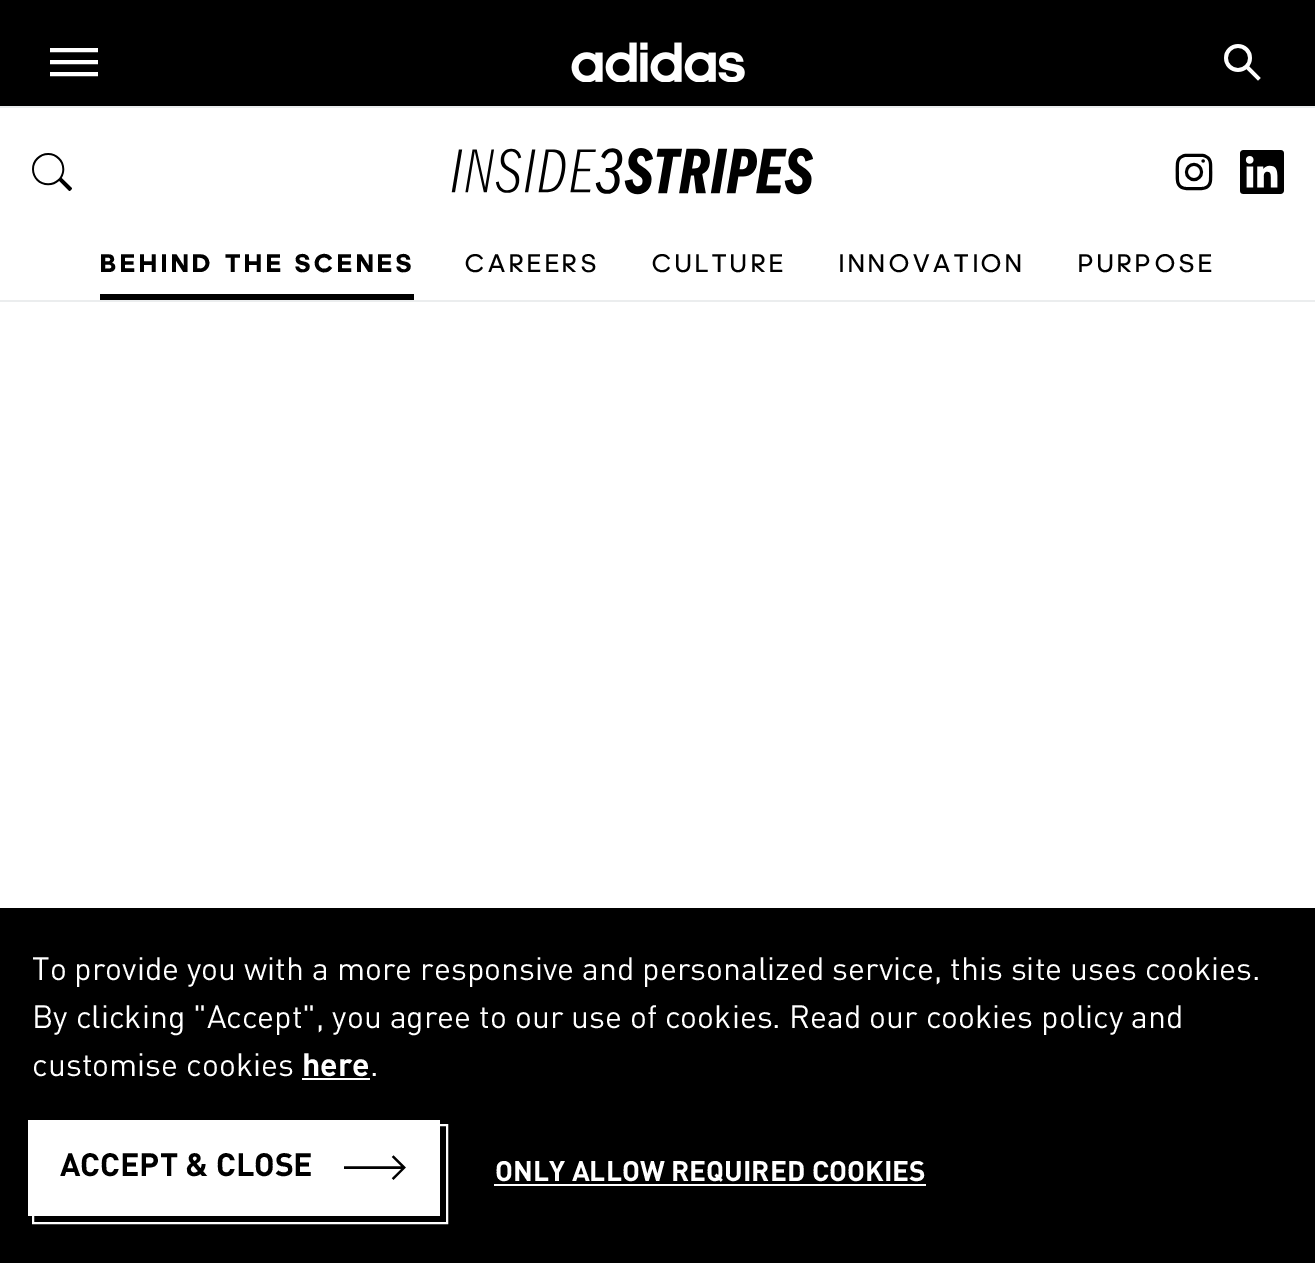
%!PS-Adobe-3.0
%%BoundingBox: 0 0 1315 1263
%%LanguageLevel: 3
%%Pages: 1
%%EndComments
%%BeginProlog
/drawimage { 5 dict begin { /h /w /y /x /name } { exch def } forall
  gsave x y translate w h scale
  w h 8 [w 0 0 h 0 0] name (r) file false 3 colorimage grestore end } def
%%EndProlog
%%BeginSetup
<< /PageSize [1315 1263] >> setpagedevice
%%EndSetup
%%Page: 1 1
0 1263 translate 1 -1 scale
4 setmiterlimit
1 setgray
0 0 1315 1263 rectfill
0 setgray
0 0 1315 106 rectfill
1 setgray
4 setlinewidth
newpath 50 50 moveto 98 50 lineto 50 62 moveto 98 62 lineto 50 74 moveto 98 74 lineto stroke
(images/1.raw) 571 42 174 40 drawimage
(images/2.raw) 1224 44 37 37 drawimage
0.922 0.929 0.933 setrgbcolor
0 106 1315 2 rectfill
0 300 1315 2 rectfill
(images/3.raw) 32 153 40 38 drawimage
(images/4.raw) 451 148 362 47 drawimage
(images/5.raw) 1175 153 38 38 drawimage
(images/6.raw) 1240 150 44 44 drawimage
0 setgray
100 294 314 6 rectfill
0 908 1315 355 rectfill
1 setgray
302 1078 68 2 rectfill
2 setlinewidth
33 1125 414 98 rectstroke
28 1120 412 96 rectfill
(images/7.raw) 344 1155 62 25 drawimage
494 1184 432 2 rectfill
/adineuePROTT-Bold [26 0 0 -26 0 0] selectfont
0 setgray
100 272 moveto 1 0 32 4 0 (BEHIND THE SCENES) awidthshow
/adineuePROTT-Regular [26 0 0 -26 0 0] selectfont
465 272 moveto 4 0 (CAREERS) ashow
652 272 moveto 4 0 (CULTURE) ashow
839 272 moveto 4 0 (INNOVATION) ashow
1078 272 moveto 4 0 (PURPOSE) ashow
/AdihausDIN-Regular [32 0 0 -32 0 0] selectfont
1 setgray
32 980 moveto (To provide you with a more responsive and personalized service, this site uses cookies.) show
32 1028 moveto (By clicking "Accept", you agree to our use of cookies. Read our cookies policy and) show
32 1076 moveto (customise cookies) show
/AdihausDIN-Bold [32 0 0 -32 0 0] selectfont
302 1076 moveto (here) show
/AdihausDIN-Regular [32 0 0 -32 0 0] selectfont
370 1076 moveto (.) show
/AdihausDIN-Bold [32 0 0 -32 0 0] selectfont
0 setgray
60 1176 moveto (ACCEPT & CLOSE) show
/AdihausDIN-Bold [28 0 0 -28 0 0] selectfont
1 setgray
495 1181 moveto (ONLY ALLOW REQUIRED COOKIES) show
showpage
%%EOF
